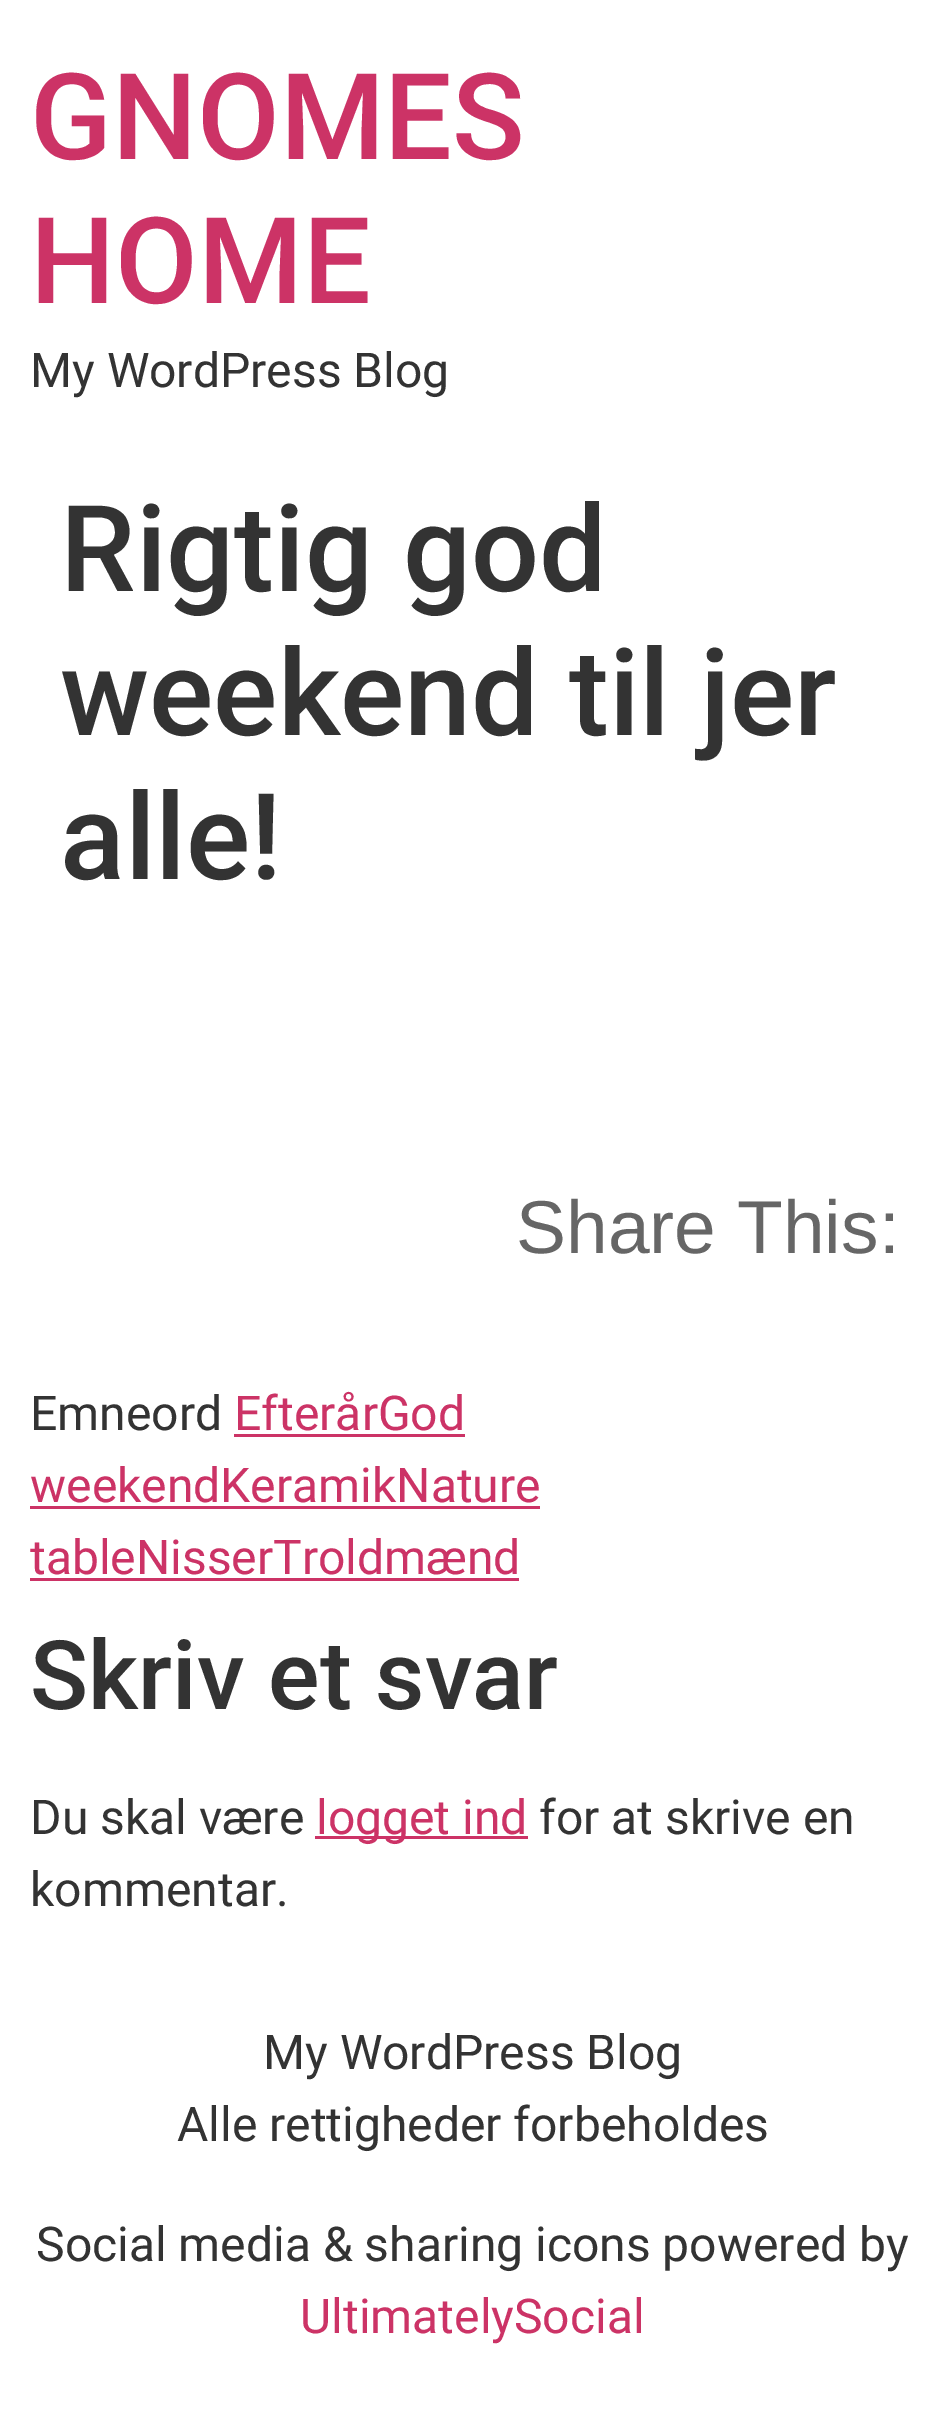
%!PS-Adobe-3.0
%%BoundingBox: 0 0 943 2413
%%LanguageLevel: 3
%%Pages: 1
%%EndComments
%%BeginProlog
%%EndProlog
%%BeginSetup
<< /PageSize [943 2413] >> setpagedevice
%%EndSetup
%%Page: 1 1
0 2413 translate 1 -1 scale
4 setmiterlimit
1 setgray
0 0 943 2413 rectfill
0.8 0.2 0.4 setrgbcolor
234 1434 231 3 rectfill
30 1506 510 3 rectfill
30 1578 489 3 rectfill
315 1836 213 3 rectfill
/Roboto-Medium [120 0 0 -120 0 0] selectfont
30 159 moveto (GNOMES) show
30 303 moveto (HOME) show
/Roboto-Regular [48 0 0 -48 0 0] selectfont
0.2 setgray
30 387 moveto (My WordPress Blog) show
/Roboto-Medium [120 0 0 -120 0 0] selectfont
60 591 moveto (Rigtig god) show
60 735 moveto (weekend til jer) show
60 879 moveto (alle!) show
/LiberationSans-Regular [75 0 0 -75 0 0] selectfont
0.4 setgray
516 1253 moveto (Share This:) show
/Roboto-Regular [48 0 0 -48 0 0] selectfont
0.2 setgray
30 1430 moveto (Emneord) show
0.8 0.2 0.4 setrgbcolor
234 1430 moveto (EfterårGod) show
30 1502 moveto (weekendKeramikNature) show
30 1574 moveto (tableNisserTroldmænd) show
/Roboto-Medium [96 0 0 -96 0 0] selectfont
0.2 setgray
30 1709 moveto (Skriv et svar) show
/Roboto-Regular [48 0 0 -48 0 0] selectfont
30 1834 moveto (Du skal være) show
0.8 0.2 0.4 setrgbcolor
316 1834 moveto (logget ind) show
0.2 setgray
539 1834 moveto (for at skrive en) show
30 1906 moveto (kommentar.) show
263 2069 moveto (My WordPress Blog) show
177 2141 moveto (Alle rettigheder forbeholdes) show
36 2261 moveto (Social media & sharing icons powered by) show
0.8 0.2 0.4 setrgbcolor
300 2333 moveto (UltimatelySocial) show
showpage
%%EOF
